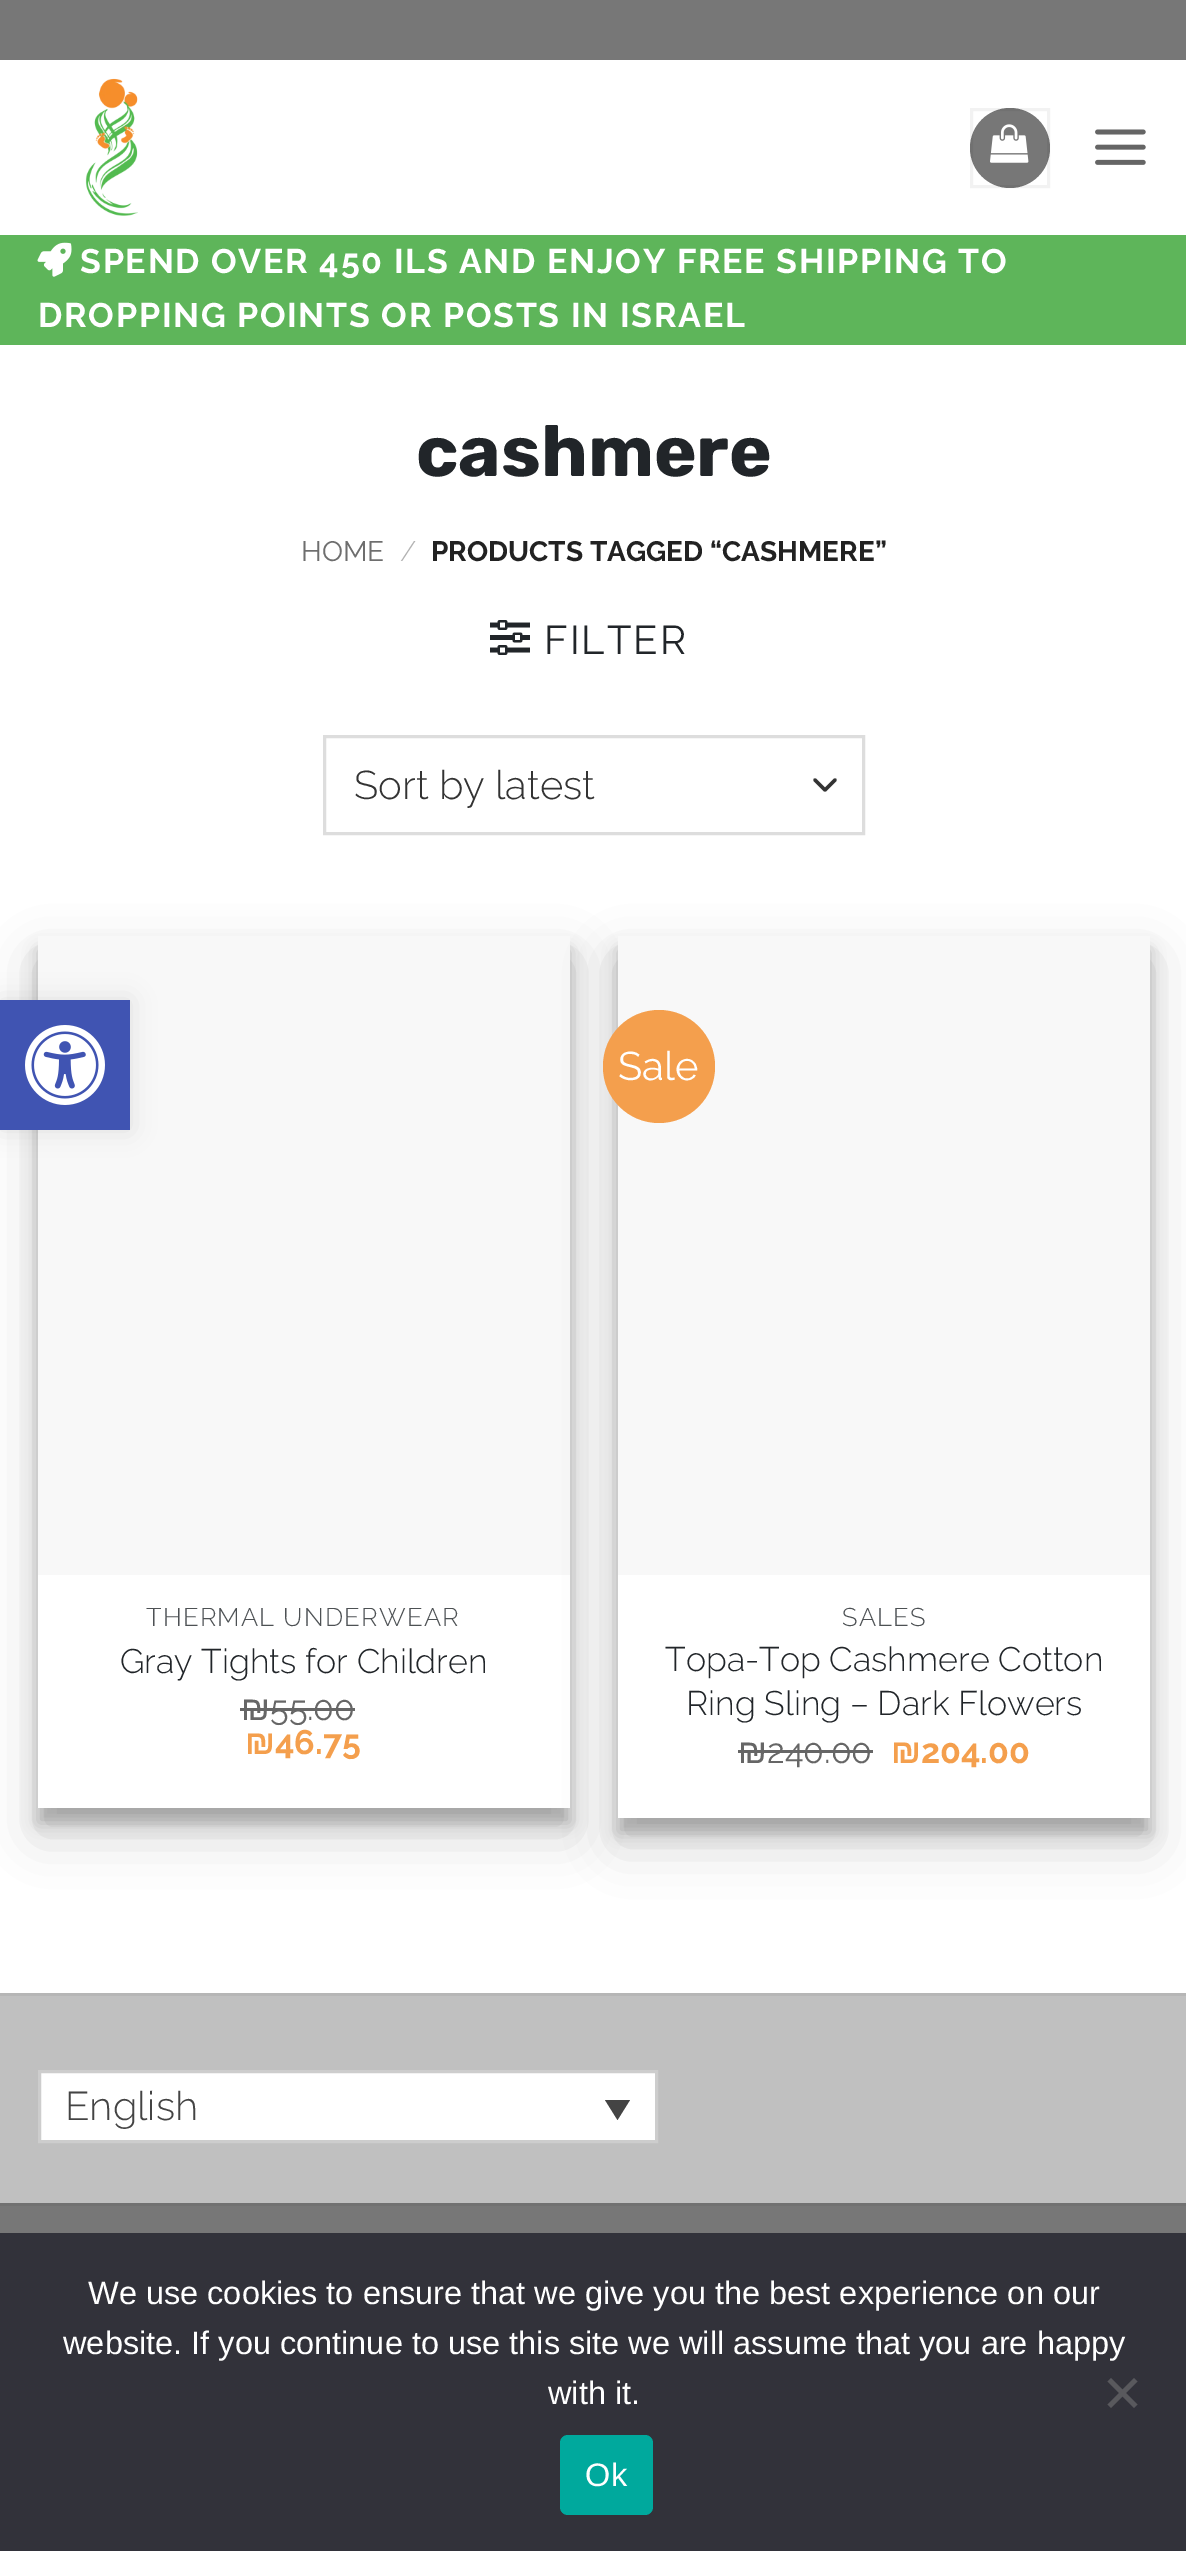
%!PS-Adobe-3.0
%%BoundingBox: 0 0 1186 2551
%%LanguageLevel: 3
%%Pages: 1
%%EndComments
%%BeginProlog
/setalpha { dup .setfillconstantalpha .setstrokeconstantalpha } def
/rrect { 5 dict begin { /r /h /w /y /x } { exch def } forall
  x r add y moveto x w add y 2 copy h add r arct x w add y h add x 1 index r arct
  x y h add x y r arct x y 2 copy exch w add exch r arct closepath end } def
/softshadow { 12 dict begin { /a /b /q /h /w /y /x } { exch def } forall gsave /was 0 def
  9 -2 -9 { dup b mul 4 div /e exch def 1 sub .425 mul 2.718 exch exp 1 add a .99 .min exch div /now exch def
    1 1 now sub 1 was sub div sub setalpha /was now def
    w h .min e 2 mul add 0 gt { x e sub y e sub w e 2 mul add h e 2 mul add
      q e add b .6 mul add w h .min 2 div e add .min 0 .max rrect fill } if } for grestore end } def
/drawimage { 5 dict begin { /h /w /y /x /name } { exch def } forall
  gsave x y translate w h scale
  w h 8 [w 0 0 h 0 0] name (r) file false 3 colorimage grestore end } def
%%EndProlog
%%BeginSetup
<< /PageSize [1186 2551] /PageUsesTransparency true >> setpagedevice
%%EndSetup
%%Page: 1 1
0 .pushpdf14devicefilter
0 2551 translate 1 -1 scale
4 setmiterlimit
1 setgray
0 0 1186 2551 rectfill
0.467 setgray
0 0 1186 60 rectfill
(images/1.raw) 85 78 53 138 drawimage
newpath 1010 148 40 0 360 arc closepath fill
0.05 setalpha
0 setgray
3 setlinewidth
971.5 109.5 77 77 rectstroke
1 setalpha
(images/2.raw) 990 124 39 39 drawimage
(images/3.raw) 1095 129 51 36 drawimage
0.369 0.71 0.353 setrgbcolor
0 235 1186 110 rectfill
(images/4.raw) 37 242 35 35 drawimage
(images/5.raw) 490 620 40 35 drawimage
0.2 setgray
3.3 setlinewidth
1 setlinecap
1 setlinejoin
newpath 815 780 moveto 825 790 lineto 835 780 lineto stroke
0.867 setgray
3 setlinewidth
0 setlinecap
0 setlinejoin
324.5 736.5 539 97 rectstroke
0 setgray
38 950 532 873 0 7.5 0.22 softshadow
38 960 532 873 0 25 0.19 softshadow
1 setgray
38 1575 532 233 rectfill
0.973 setgray
38 936 532 639 rectfill
0.4 setgray
240 1708 30 3 rectfill
270 1708 85 3 rectfill
0 setgray
618 950 532 883 0 7.5 0.22 softshadow
618 960 532 883 0 25 0.19 softshadow
1 setgray
618 1575 532 243 rectfill
0.973 setgray
618 936 532 639 rectfill
0.957 0.624 0.302 setrgbcolor
603 1010 112 113 56 rrect fill
0.4 setgray
738 1750 30 3 rectfill
768 1750 105 3 rectfill
0.753 setgray
0 1996 1186 207 rectfill
0.714 setgray
0 1993 1186 3 rectfill
1 setgray
newpath 39.5 2071.5 moveto 656.5 2071.5 lineto 656.5 2141.5 lineto 39.5 2141.5 lineto closepath gsave fill grestore
0.804 setgray
stroke
0.267 setgray
newpath 605 2100 moveto 630 2100 lineto 617.5 2120 lineto closepath fill
0.467 setgray
0 2206 1186 27 rectfill
0.443 setgray
0 2203 1186 3 rectfill
0 setgray
0 1000 130 130 0 12.5 0.1 softshadow
0.251 0.329 0.698 setrgbcolor
0 1000 130 130 rectfill
(images/6.raw) 25 1025 80 80 drawimage
0.196 0.196 0.227 setrgbcolor
0 2233 1186 318 rectfill
0.349 0.349 0.365 setrgbcolor
newpath 1134 2378 moveto 1137.5 2381.5 lineto 1111 2408 lineto 1107.5 2404.5 lineto closepath fill
newpath 1107.5 2381.5 moveto 1111 2378 lineto 1137.5 2404.5 lineto 1134 2408 lineto closepath fill
0 0.663 0.616 setrgbcolor
560 2435 93 80 8 rrect fill
/Raleway-Bold [34 0 0 -34 0 0] selectfont
1 setgray
80 273 moveto 1.7 0 (SPEND OVER 450 ILS AND ENJOY FREE SHIPPING TO) ashow
38 327 moveto 1.7 0 (DROPPING POINTS OR POSTS IN ISRAEL) ashow
/Rubik-Bold [72 0 0 -72 0 0] selectfont
0.129 0.145 0.161 setrgbcolor
416 476 moveto (cashmere) show
/Raleway-Regular [28 0 0 -28 0 0] selectfont
0.431 setgray
301 561 moveto (HOME) show
/Raleway-Light [28 0 0 -28 0 0] selectfont
0.698 setgray
400 561 moveto (/) show
/Raleway-Bold [28 0 0 -28 0 0] selectfont
0.133 setgray
431 561 moveto (PRODUCTS TAGGED “CASHMERE”) show
/Raleway-Regular [40 0 0 -40 0 0] selectfont
0.129 0.145 0.161 setrgbcolor
544 654 moveto 2 0 (FILTER) ashow
/Raleway-Light [40 0 0 -40 0 0] selectfont
0.2 setgray
354 799 moveto (Sort by latest) show
/Raleway-Light [25.5 0 0 -25.5 0 0] selectfont
0.302 0.318 0.329 setrgbcolor
146 1626 moveto 1.25 0 (THERMAL UNDERWEAR) ashow
/Raleway-Light [34 0 0 -34 0 0] selectfont
0.129 0.145 0.161 setrgbcolor
120 1673 moveto (Gray Tights for Children) show
/LiberationSans-Regular [34 0 0 -34 0 0] selectfont
0.4 setgray
241 1720 moveto (₪) show
/Raleway-Regular [34 0 0 -34 0 0] selectfont
270 1720 moveto (55.00) show
/LiberationSans-Bold [34 0 0 -34 0 0] selectfont
0.957 0.624 0.302 setrgbcolor
245 1754 moveto (₪) show
/Raleway-Bold [34 0 0 -34 0 0] selectfont
275 1754 moveto (46.75) show
/Raleway-Regular [40 0 0 -40 0 0] selectfont
1 setgray
618 1080 moveto (Sale) show
/Raleway-Light [25.5 0 0 -25.5 0 0] selectfont
0.302 0.318 0.329 setrgbcolor
842 1626 moveto 1.25 0 (SALES) ashow
/Raleway-Light [34 0 0 -34 0 0] selectfont
0.129 0.145 0.161 setrgbcolor
665 1671 moveto (Topa-Top Cashmere Cotton) show
686 1715 moveto (Ring Sling – Dark Flowers) show
/LiberationSans-Regular [34 0 0 -34 0 0] selectfont
0.4 setgray
738 1763 moveto (₪) show
/Raleway-Regular [34 0 0 -34 0 0] selectfont
767 1763 moveto (240.00) show
/LiberationSans-Bold [34 0 0 -34 0 0] selectfont
0.957 0.624 0.302 setrgbcolor
891 1763 moveto (₪) show
/Raleway-Bold [34 0 0 -34 0 0] selectfont
921 1763 moveto (204.00) show
/Raleway-Light [40 0 0 -40 0 0] selectfont
0.267 setgray
65 2120 moveto (English) show
/LiberationSans-Regular [32.5 0 0 -32.5 0 0] selectfont
1 setgray
88 2304 moveto (We use cookies to ensure that we give you the best experience on our) show
63 2354 moveto (website. If you continue to use this site we will assume that you are happy) show
548 2404 moveto (with it.) show
585 2486 moveto 1 0 (Ok) ashow
.poppdf14devicefilter showpage
%%EOF
